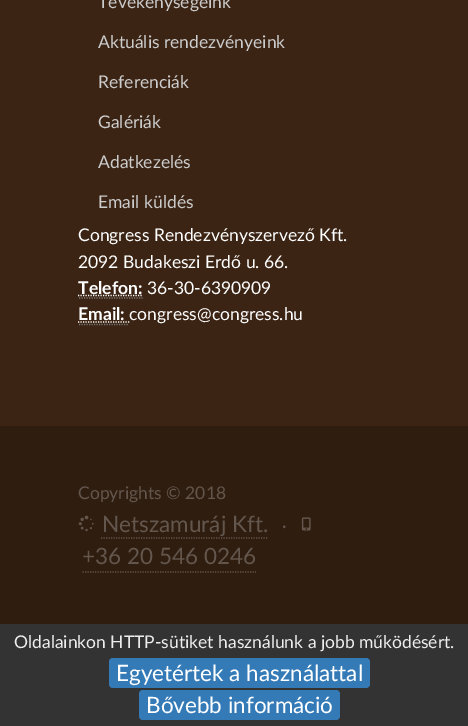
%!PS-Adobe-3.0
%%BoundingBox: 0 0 468 726
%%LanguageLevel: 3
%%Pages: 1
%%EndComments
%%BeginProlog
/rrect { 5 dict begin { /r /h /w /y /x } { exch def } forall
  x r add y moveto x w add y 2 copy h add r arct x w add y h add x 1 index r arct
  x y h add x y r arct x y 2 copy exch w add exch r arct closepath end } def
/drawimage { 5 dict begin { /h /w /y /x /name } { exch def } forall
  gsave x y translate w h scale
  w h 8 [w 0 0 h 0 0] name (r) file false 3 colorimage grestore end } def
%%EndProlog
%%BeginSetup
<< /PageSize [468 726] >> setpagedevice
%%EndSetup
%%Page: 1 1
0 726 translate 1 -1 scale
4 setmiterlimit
0.2 setgray
0 0 468 726 rectfill
0.231 0.141 0.078 setrgbcolor
0 0 468 426 rectfill
0.467 setgray
1.2 setlinewidth
[1.25 1.25] 0 setdash
newpath 79 298 moveto 142.5 298 lineto stroke
1 setgray
newpath 78 295.5 moveto 142.5 295.5 lineto stroke
0.467 setgray
newpath 79 324.5 moveto 129 324.5 lineto stroke
1 setgray
newpath 78 322 moveto 129.5 322 lineto stroke
0.184 0.114 0.063 setrgbcolor
0 426 468 198 rectfill
(images/1.raw) 78 515 16 17 drawimage
0.388 0.337 0.298 setrgbcolor
newpath 101 538 moveto 267.5 538 lineto stroke
(images/2.raw) 301 517 10 14 drawimage
newpath 82.5 572 moveto 256 572 lineto stroke
0.2 0.478 0.718 setrgbcolor
109 658 261 30 4 rrect fill
139 690 201 30 4 rrect fill
/Lato-Regular [17.5 0 0 -17.5 0 0] selectfont
0.8 setgray
98 8 moveto (Tevékenységeink) show
98 48 moveto (Aktuális rendezvényeink) show
98 88 moveto (Referenciák) show
98 128 moveto (Galériák) show
98 168 moveto (Adatkezelés) show
98 208 moveto (Email küldés) show
1 setgray
78 241 moveto (Congress Rendezvényszervező Kft.) show
78 268 moveto (2092 Budakeszi Erdő u. 66.) show
/Lato-Bold [17.5 0 0 -17.5 0 0] selectfont
78 294 moveto (Telefon:) show
/Lato-Regular [17.5 0 0 -17.5 0 0] selectfont
147 294 moveto (36-30-6390909) show
/Lato-Bold [17.5 0 0 -17.5 0 0] selectfont
78 320 moveto (Email:) show
/Lato-Regular [17.5 0 0 -17.5 0 0] selectfont
129 320 moveto (congress@congress.hu) show
0.388 0.337 0.298 setrgbcolor
78 499 moveto (Copyrights © 2018) show
/Lato-Regular [22.5 0 0 -22.5 0 0] selectfont
102 532 moveto (Netszamuráj Kft.) show
/Lato-Regular [17.5 0 0 -17.5 0 0] selectfont
282 532 moveto (·) show
/Lato-Regular [22.5 0 0 -22.5 0 0] selectfont
82 564 moveto (+36 20 546 0246) show
/Lato-Regular [17.5 0 0 -17.5 0 0] selectfont
0.933 setgray
14 648 moveto (Oldalainkon HTTP-sütiket használunk a jobb működésért.) show
/Lato-Regular [22.5 0 0 -22.5 0 0] selectfont
1 setgray
116 681 moveto (Egyetértek a használattal) show
146 713 moveto (Bővebb információ) show
showpage
%%EOF
